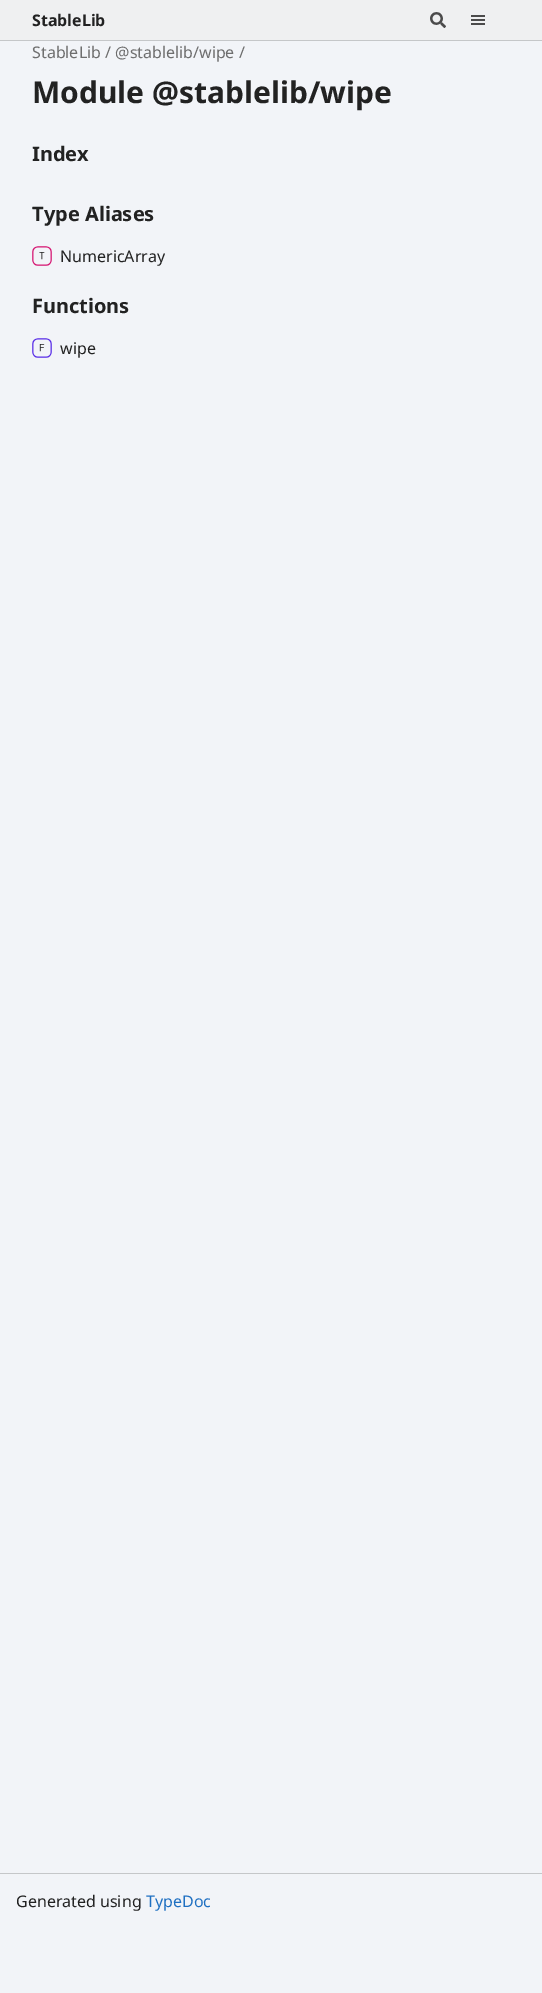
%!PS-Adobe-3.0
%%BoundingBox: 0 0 542 1993
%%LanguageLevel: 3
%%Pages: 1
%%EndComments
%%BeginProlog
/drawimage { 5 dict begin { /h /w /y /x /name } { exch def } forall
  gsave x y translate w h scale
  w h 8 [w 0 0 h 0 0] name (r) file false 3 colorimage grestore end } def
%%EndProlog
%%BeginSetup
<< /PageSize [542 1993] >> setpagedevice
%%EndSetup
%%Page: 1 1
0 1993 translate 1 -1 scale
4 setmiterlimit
0.949 0.957 0.973 setrgbcolor
0 0 542 1993 rectfill
0.937 0.941 0.945 setrgbcolor
0 0 542 40 rectfill
0.773 0.78 0.788 setrgbcolor
0 40 542 1 rectfill
(images/1.raw) 430 12 16 16 drawimage
(images/2.raw) 471 15 14 10 drawimage
(images/3.raw) 32 246 20 20 drawimage
(images/4.raw) 32 338 20 20 drawimage
0 1873 542 1 rectfill
/NotoSans-Bold [16 0 0 -16 0 0] selectfont
0.133 setgray
32 26 moveto (StableLib) show
/NotoSans-Regular [16 0 0 -16 0 0] selectfont
0.431 setgray
32 58 moveto (StableLib / @stablelib/wipe /) show
/NotoSans-Bold [30 0 0 -30 0 0] selectfont
0.133 setgray
32 103 moveto (Module @stablelib/wipe) show
/NotoSans-Bold [20 0 0 -20 0 0] selectfont
32 161 moveto (Index) show
32 221 moveto (Type Aliases) show
/NotoSans-Regular [16 0 0 -16 0 0] selectfont
60 262 moveto (NumericArray) show
/NotoSans-Bold [20 0 0 -20 0 0] selectfont
32 313 moveto (Functions) show
/NotoSans-Regular [16 0 0 -16 0 0] selectfont
60 354 moveto (wipe) show
16 1907 moveto (Generated using) show
0.122 0.439 0.761 setrgbcolor
146 1907 moveto (TypeDoc) show
showpage
%%EOF
